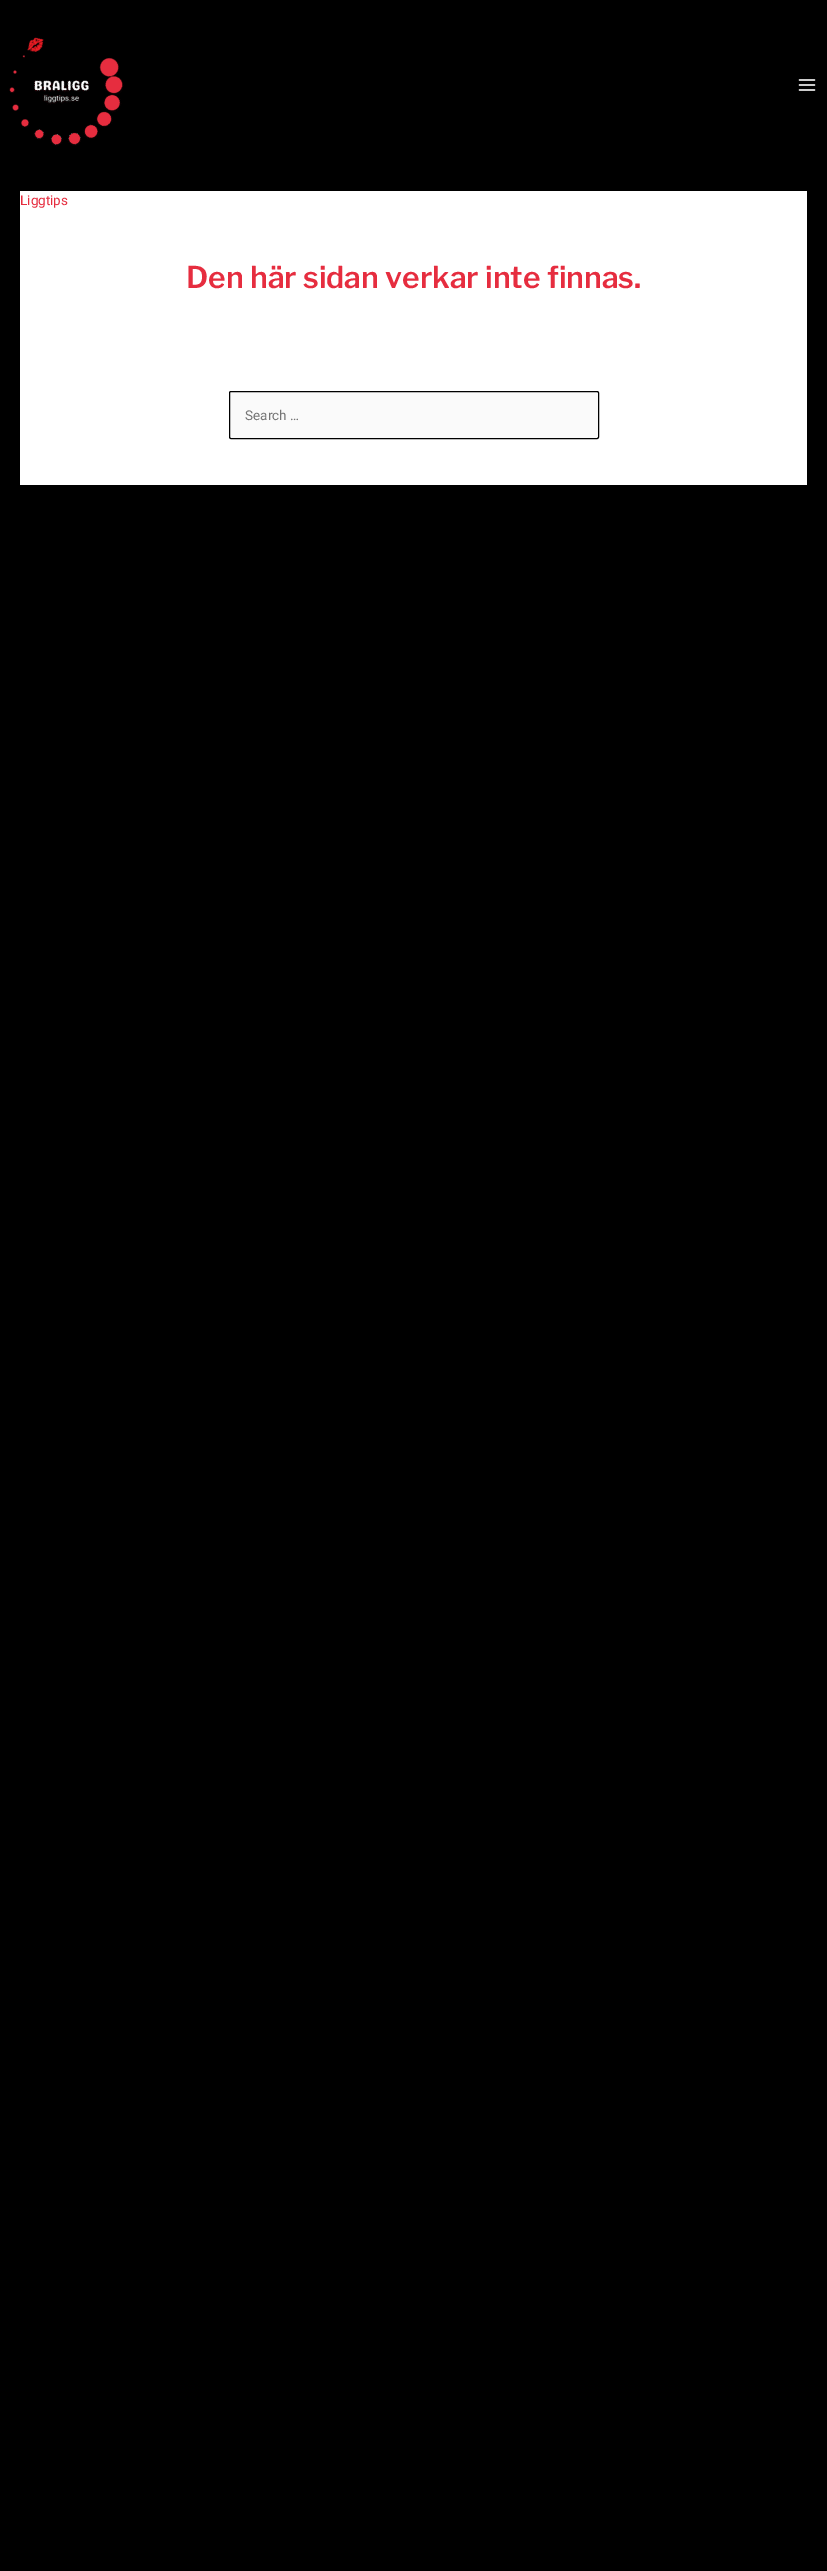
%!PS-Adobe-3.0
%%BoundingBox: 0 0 827 2571
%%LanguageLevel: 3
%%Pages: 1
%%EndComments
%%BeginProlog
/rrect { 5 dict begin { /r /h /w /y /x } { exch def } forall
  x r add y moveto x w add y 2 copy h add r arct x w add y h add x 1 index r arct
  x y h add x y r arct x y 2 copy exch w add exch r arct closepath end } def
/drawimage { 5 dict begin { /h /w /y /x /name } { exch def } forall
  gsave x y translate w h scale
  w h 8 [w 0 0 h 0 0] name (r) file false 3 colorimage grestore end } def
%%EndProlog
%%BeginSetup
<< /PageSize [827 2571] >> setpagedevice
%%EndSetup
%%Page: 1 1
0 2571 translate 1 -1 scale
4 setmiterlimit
0 setgray
0 0 827 2571 rectfill
(images/1.raw) 9 37 115 110 drawimage
(images/2.raw) 798 79 18 12 drawimage
1 setgray
20 191 787 294 rectfill
0.98 setgray
229.5 391.5 369 47 1.5 rrect gsave fill grestore
0 setgray
stroke
/Roboto-Regular [13.5 0 0 -13.5 0 0] selectfont
0.902 0.176 0.247 setrgbcolor
20 205 moveto (Liggtips) show
/LibreFranklin-Thin [30 0 0 -30 0 0] selectfont
186 288 moveto (Den här sidan verkar inte finnas.) show
/Roboto-Regular [13.5 0 0 -13.5 0 0] selectfont
0.459 setgray
245 420 moveto (Search …) show
showpage
%%EOF
